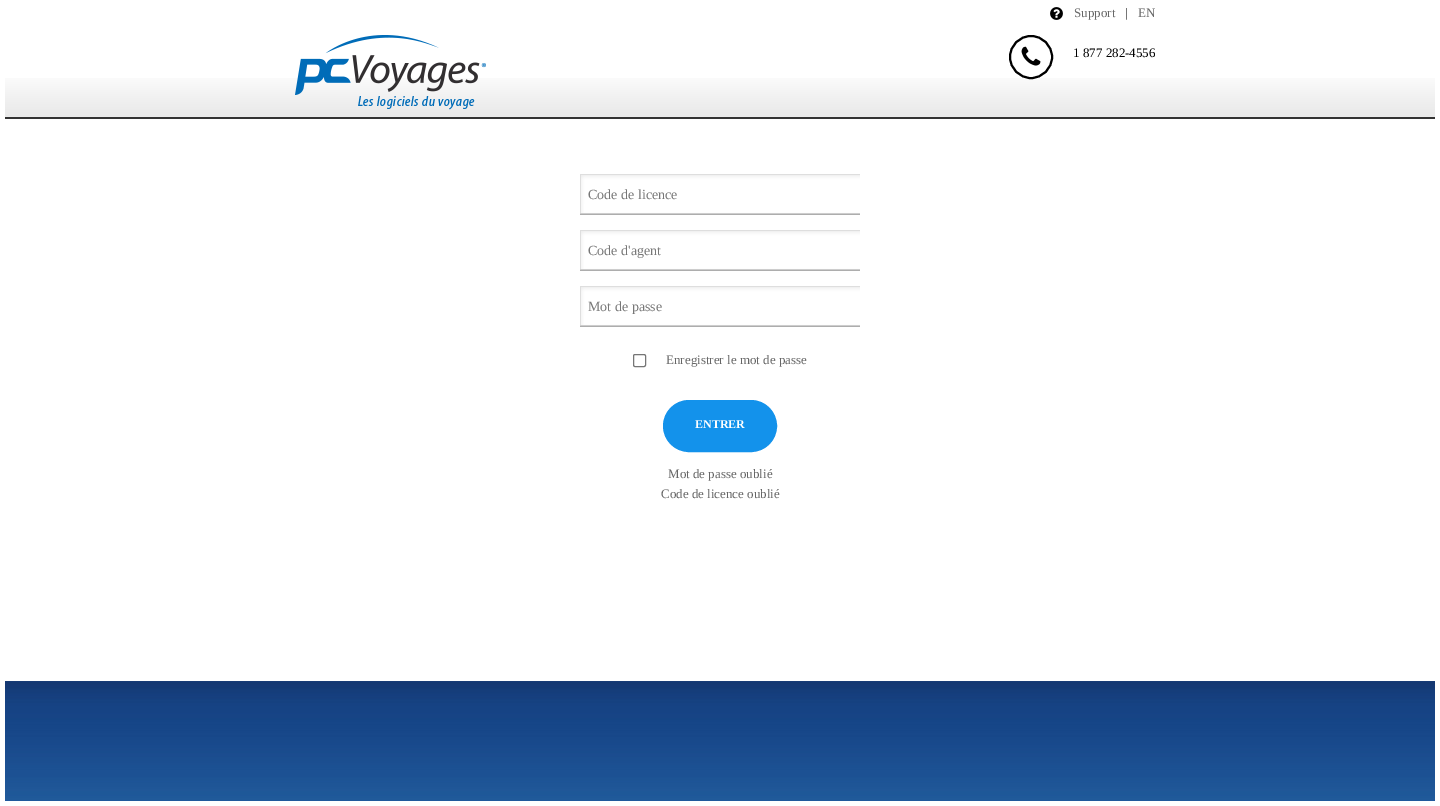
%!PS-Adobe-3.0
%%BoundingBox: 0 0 1440 806
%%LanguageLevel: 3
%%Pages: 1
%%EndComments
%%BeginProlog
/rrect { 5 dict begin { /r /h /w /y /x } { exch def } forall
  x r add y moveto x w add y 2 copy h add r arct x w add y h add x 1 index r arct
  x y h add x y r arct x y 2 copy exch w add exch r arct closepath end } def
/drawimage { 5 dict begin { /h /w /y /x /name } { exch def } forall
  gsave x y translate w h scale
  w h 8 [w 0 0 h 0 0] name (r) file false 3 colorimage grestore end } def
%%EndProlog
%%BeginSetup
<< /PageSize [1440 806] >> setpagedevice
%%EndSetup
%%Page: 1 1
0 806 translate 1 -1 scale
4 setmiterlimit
1 setgray
0 0 1440 806 rectfill
(images/1.raw) 5 78 1430 41 drawimage
(images/2.raw) 295 35 191 75 drawimage
(images/3.raw) 1050 7 13 13 drawimage
0 setgray
2 setlinewidth
newpath 1031 57 21 0 360 arc closepath stroke
(images/4.raw) 1021 46 20 20 drawimage
(images/5.raw) 580 174 280 41 drawimage
(images/5.raw) 580 230 280 41 drawimage
(images/5.raw) 580 286 280 41 drawimage
0.463 setgray
1 setlinewidth
633.5 354.5 12 12 1.5 rrect stroke
0.075 0.573 0.922 setrgbcolor
664 401 112 50 25 rrect gsave fill grestore
2 setlinewidth
stroke
(images/6.raw) 5 681 1430 120 drawimage
/LiberationSerif-Regular [13 0 0 -13 0 0] selectfont
0.4 setgray
1074 17 moveto (Support) show
0 setgray
1125 17 moveto (|) show
0.4 setgray
1138 17 moveto (EN) show
0 setgray
1073 57 moveto (1 877 282-4556) show
/LiberationSerif-Regular [14 0 0 -14 0 0] selectfont
0.467 setgray
588 199 moveto (Code de licence) show
588 255 moveto (Code d'agent) show
588 311 moveto (Mot de passe) show
/LiberationSerif-Regular [13 0 0 -13 0 0] selectfont
0.4 setgray
666 364 moveto (Enregistrer le mot de passe) show
/LiberationSerif-Bold [12 0 0 -12 0 0] selectfont
1 setgray
695 428 moveto (ENTRER) show
/LiberationSerif-Regular [13 0 0 -13 0 0] selectfont
0.4 setgray
668 478 moveto (Mot de passe oublié) show
661 498 moveto (Code de licence oublié) show
showpage
%%EOF
